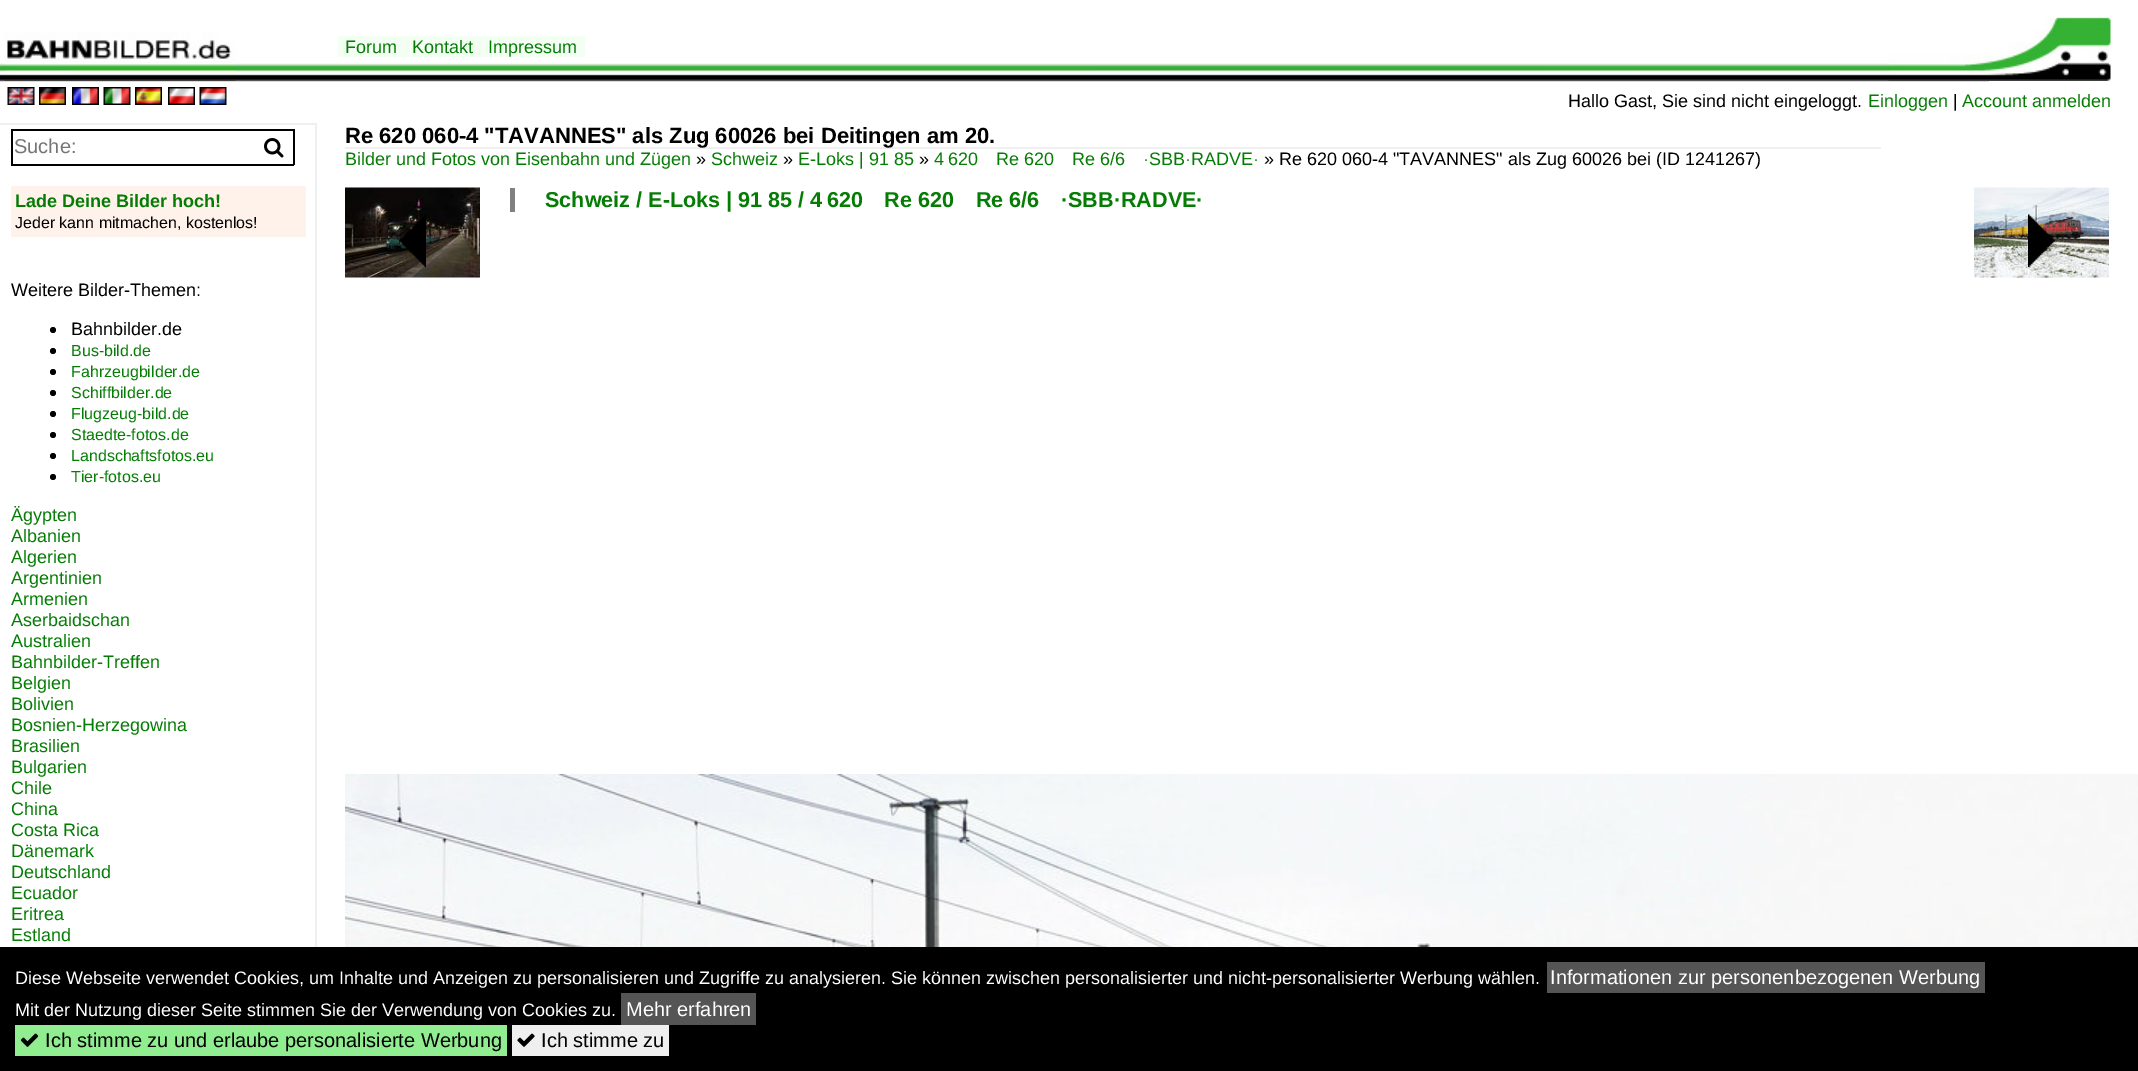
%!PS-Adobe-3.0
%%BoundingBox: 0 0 2138 1071
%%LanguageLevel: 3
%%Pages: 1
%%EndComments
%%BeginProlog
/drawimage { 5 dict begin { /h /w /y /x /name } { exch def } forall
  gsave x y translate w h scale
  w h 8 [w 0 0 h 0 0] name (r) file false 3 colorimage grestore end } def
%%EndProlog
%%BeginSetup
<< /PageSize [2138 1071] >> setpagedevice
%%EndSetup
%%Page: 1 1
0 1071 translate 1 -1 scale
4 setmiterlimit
1 setgray
0 0 2138 1071 rectfill
(images/3.raw) 0 63 1989 19 drawimage
(images/1.raw) 4 32 232 49 drawimage
0.957 1 0.957 setrgbcolor
338 36 247 21 rectfill
(images/2.raw) 1888 17 223 64 drawimage
0.937 setgray
0 123 317 2 rectfill
315 123 2 824 rectfill
0 setgray
11 129 283 2 rectfill
11 164 244 2 rectfill
11 129 2 36 rectfill
293 129 2 36 rectfill
255 164 39 2 rectfill
(images/4.raw) 264 138 20 20 drawimage
1 0.949 0.922 setrgbcolor
11 186 295 51 rectfill
0 setgray
newpath 53 330 3 0 360 arc closepath fill
newpath 53 351 3 0 360 arc closepath fill
newpath 53 372 3 0 360 arc closepath fill
newpath 53 393 3 0 360 arc closepath fill
newpath 53 414 3 0 360 arc closepath fill
newpath 53 435 3 0 360 arc closepath fill
newpath 53 456 3 0 360 arc closepath fill
newpath 53 477 3 0 360 arc closepath fill
(images/5.raw) 7 87 28 18 drawimage
(images/6.raw) 39 87 27 18 drawimage
(images/7.raw) 72 87 27 18 drawimage
(images/8.raw) 103 87 28 18 drawimage
(images/9.raw) 135 87 27 18 drawimage
(images/10.raw) 168 87 27 18 drawimage
(images/11.raw) 199 87 28 18 drawimage
0.937 setgray
345 147 1536 2 rectfill
(images/12.raw) 345 187 135 91 drawimage
(images/13.raw) 399 214 27 53 drawimage
0.502 setgray
510 188 5 24 rectfill
(images/14.raw) 1974 187 135 91 drawimage
(images/15.raw) 2028 214 27 53 drawimage
(images/16.raw) 345 774 1793 173 drawimage
0 setgray
0 947 2138 124 rectfill
0.333 setgray
1547 962 438 31 rectfill
621 993 135 32 rectfill
0.565 0.933 0.565 setrgbcolor
15 1025 492 31 rectfill
(images/17.raw) 20 1033 19 14 drawimage
0.937 setgray
512 1025 157 31 rectfill
(images/18.raw) 517 1033 18 14 drawimage
/LiberationSans-Regular [18 0 0 -18 0 0] selectfont
0.02 0.49 0.02 setrgbcolor
345 53 moveto (Forum) show
412 53 moveto (Kontakt) show
488 53 moveto (Impressum) show
0 setgray
1568 107 moveto (Hallo Gast, Sie sind nicht eingeloggt.) show
0.02 0.49 0.02 setrgbcolor
1868 107 moveto (Einloggen) show
0 setgray
1953 107 moveto (|) show
0.02 0.49 0.02 setrgbcolor
1962 107 moveto (Account anmelden) show
/LiberationSans-Regular [20 0 0 -20 0 0] selectfont
0.459 setgray
14 153 moveto (Suche:) show
/LiberationSans-Bold [18 0 0 -18 0 0] selectfont
0.02 0.49 0.02 setrgbcolor
15 207 moveto (Lade Deine Bilder hoch!) show
/LiberationSans-Regular [16 0 0 -16 0 0] selectfont
0 setgray
15 228 moveto (Jeder kann mitmachen, kostenlos!) show
/LiberationSans-Regular [18 0 0 -18 0 0] selectfont
11 296 moveto (Weitere Bilder-Themen:) show
71 335 moveto (Bahnbilder.de) show
/LiberationSans-Regular [16 0 0 -16 0 0] selectfont
0.02 0.49 0.02 setrgbcolor
71 356 moveto (Bus-bild.de) show
71 377 moveto (Fahrzeugbilder.de) show
71 398 moveto (Schiffbilder.de) show
71 419 moveto (Flugzeug-bild.de) show
71 440 moveto (Staedte-fotos.de) show
71 461 moveto (Landschaftsfotos.eu) show
71 482 moveto (Tier-fotos.eu) show
/LiberationSans-Regular [18 0 0 -18 0 0] selectfont
11 521 moveto (Ägypten) show
11 542 moveto (Albanien) show
11 563 moveto (Algerien) show
11 584 moveto (Argentinien) show
11 605 moveto (Armenien) show
11 626 moveto (Aserbaidschan) show
11 647 moveto (Australien) show
11 668 moveto (Bahnbilder-Treffen) show
11 689 moveto (Belgien) show
11 710 moveto (Bolivien) show
11 731 moveto (Bosnien-Herzegowina) show
11 752 moveto (Brasilien) show
11 773 moveto (Bulgarien) show
11 794 moveto (Chile) show
11 815 moveto (China) show
11 836 moveto (Costa Rica) show
11 857 moveto (Dänemark) show
11 878 moveto (Deutschland) show
11 899 moveto (Ecuador) show
11 920 moveto (Eritrea) show
11 941 moveto (Estland) show
/LiberationSans-Bold [22 0 0 -22 0 0] selectfont
0 setgray
345 143 moveto (Re 620 060-4 "TAVANNES" als Zug 60026 bei Deitingen am 20.) show
/LiberationSans-Regular [18 0 0 -18 0 0] selectfont
0.02 0.49 0.02 setrgbcolor
345 165 moveto (Bilder und Fotos von Eisenbahn und Zügen) show
0 setgray
696 165 moveto (») show
0.02 0.49 0.02 setrgbcolor
711 165 moveto (Schweiz) show
0 setgray
783 165 moveto (») show
0.02 0.49 0.02 setrgbcolor
798 165 moveto (E-Loks | 91 85) show
0 setgray
919 165 moveto (») show
0.02 0.49 0.02 setrgbcolor
934 165 moveto (4 620 Re 620 Re 6/6 ·SBB·RADVE·) show
0 setgray
1264 165 moveto (» Re 620 060-4 "TAVANNES" als Zug 60026 bei \(ID 1241267\)) show
/LiberationSans-Bold [21.6 0 0 -21.6 0 0] selectfont
0.02 0.49 0.02 setrgbcolor
545 207 moveto (Schweiz / E-Loks | 91 85 / 4 620 Re 620 Re 6/6 ·SBB·RADVE·) show
/LiberationSans-Regular [18 0 0 -18 0 0] selectfont
1 setgray
15 984 moveto (Diese Webseite verwendet Cookies, um Inhalte und Anzeigen zu personalisieren und Zugriffe zu analysieren. Sie können zwischen personalisierter und nicht-personalisierter Werbung wählen.) show
/LiberationSans-Regular [20 0 0 -20 0 0] selectfont
1550 984 moveto (Informationen zur personenbezogenen Werbung) show
/LiberationSans-Regular [18 0 0 -18 0 0] selectfont
15 1016 moveto (Mit der Nutzung dieser Seite stimmen Sie der Verwendung von Cookies zu.) show
/LiberationSans-Regular [20 0 0 -20 0 0] selectfont
626 1016 moveto (Mehr erfahren) show
0 setgray
45 1047 moveto (Ich stimme zu und erlaube personalisierte Werbung) show
541 1047 moveto (Ich stimme zu) show
showpage
%%EOF
